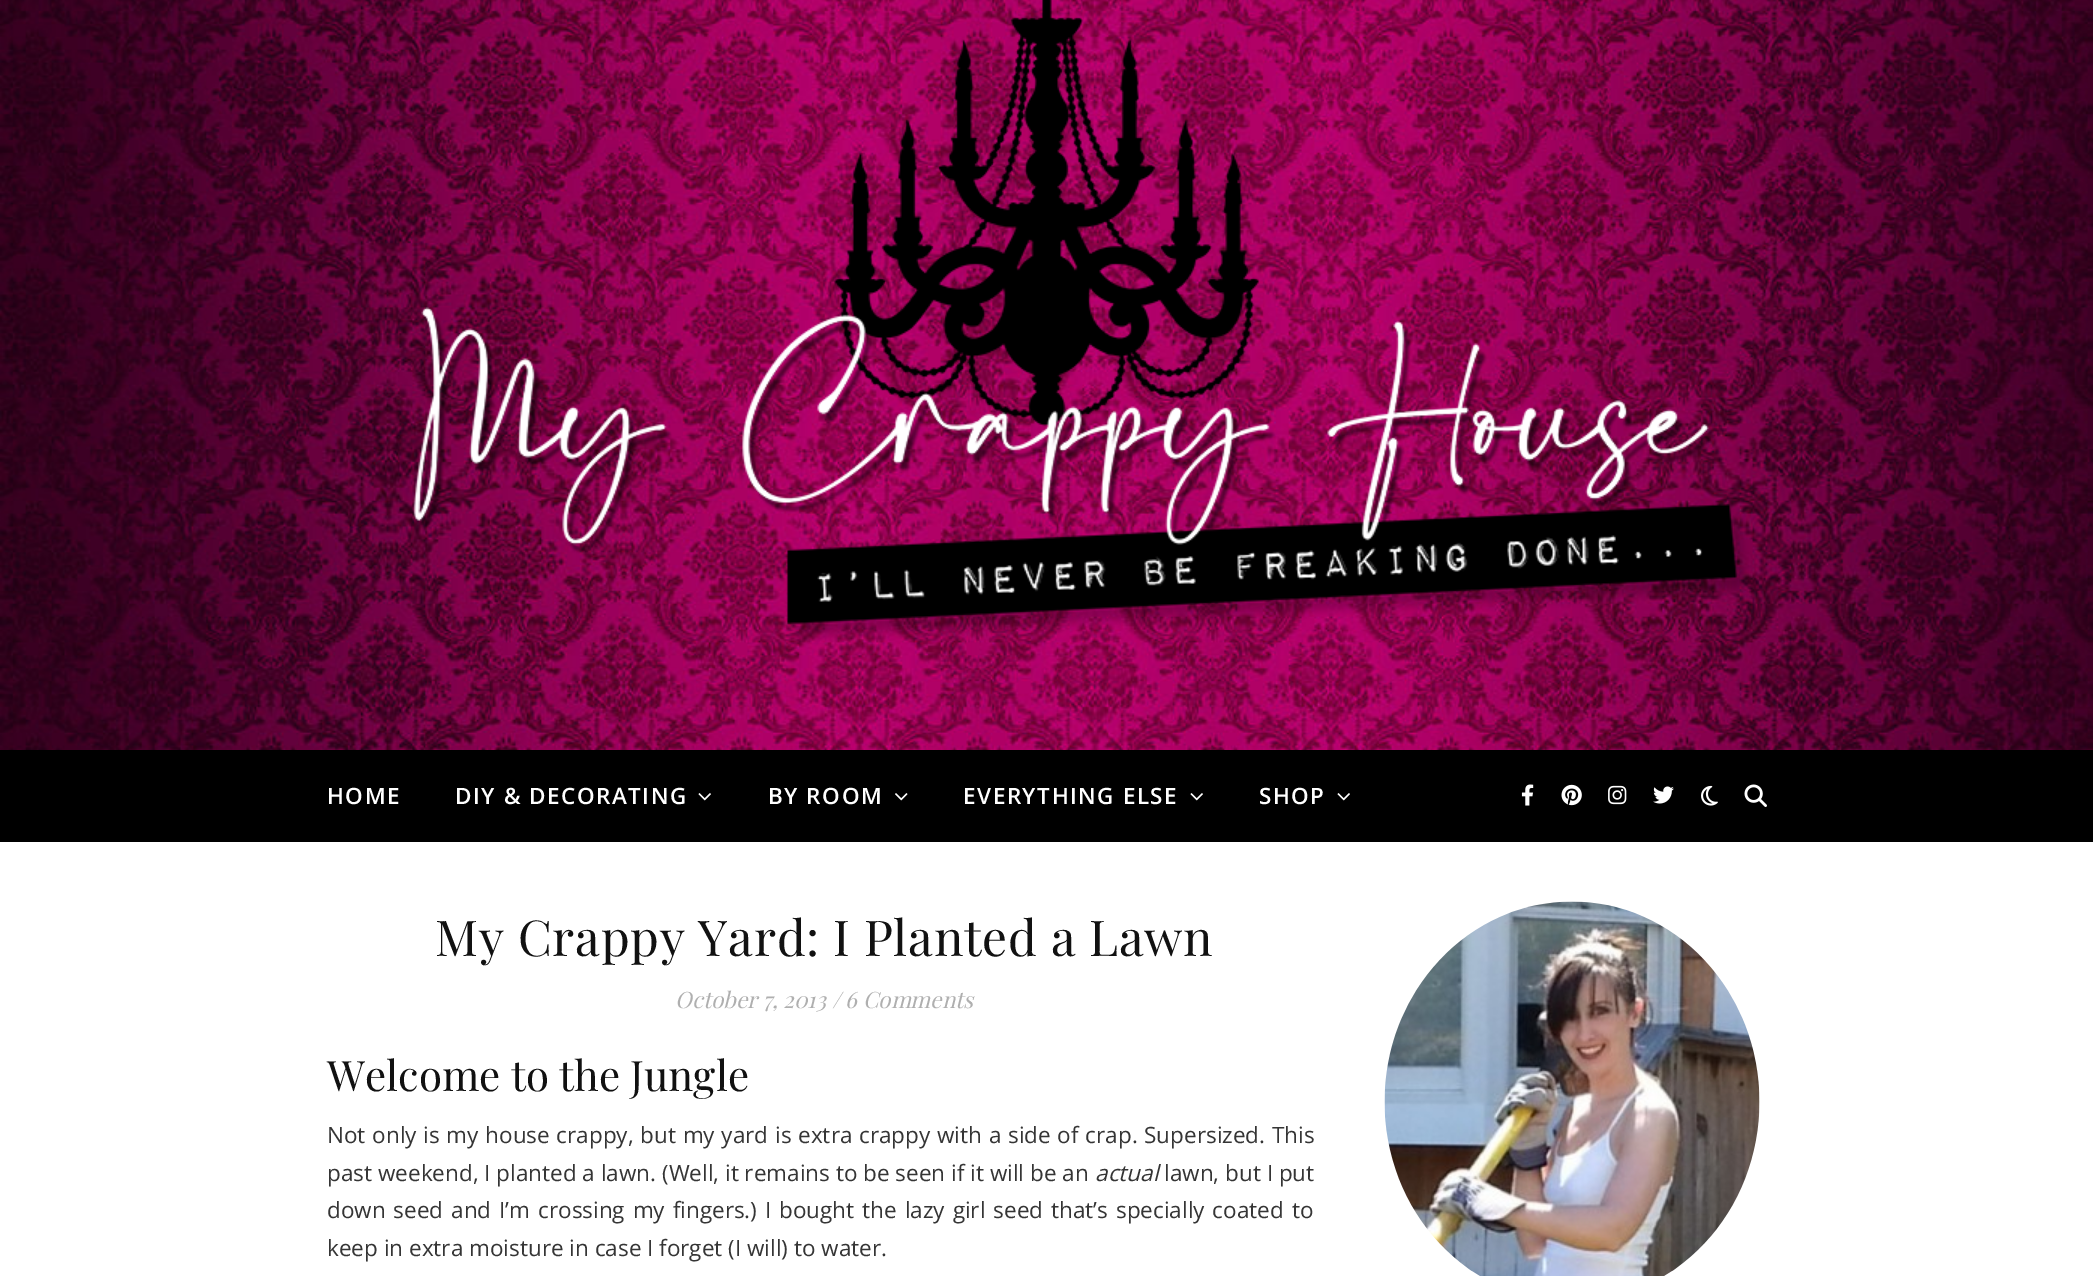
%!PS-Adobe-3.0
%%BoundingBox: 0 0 2093 1276
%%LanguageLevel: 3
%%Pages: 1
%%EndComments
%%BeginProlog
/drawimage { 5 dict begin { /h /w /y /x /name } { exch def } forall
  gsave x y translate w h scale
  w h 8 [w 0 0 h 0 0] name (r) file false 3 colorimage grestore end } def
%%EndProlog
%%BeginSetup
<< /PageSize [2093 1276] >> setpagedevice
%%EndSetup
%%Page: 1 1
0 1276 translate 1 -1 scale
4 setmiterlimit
1 setgray
0 0 2093 1276 rectfill
(images/1.raw) 0 0 2093 750 drawimage
(images/2.raw) 413 0 1336 642 drawimage
0 setgray
0 750 2093 92 rectfill
(images/3.raw) 698 793 13 8 drawimage
(images/4.raw) 895 793 13 8 drawimage
(images/3.raw) 1190 793 13 8 drawimage
(images/3.raw) 1337 793 13 8 drawimage
(images/5.raw) 1521 784 13 22 drawimage
(images/6.raw) 1561 784 21 22 drawimage
(images/7.raw) 1608 785 19 20 drawimage
(images/8.raw) 1653 786 21 18 drawimage
(images/9.raw) 1701 785 17 21 drawimage
(images/10.raw) 1744 784 23 23 drawimage
(images/11.raw) 1384 901 376 375 drawimage
/OpenSans-SemiBold [22.5 0 0 -22.5 0 0] selectfont
1 setgray
327 804 moveto 1.5 0 (HOME) ashow
455 804 moveto 1.5 0 (DIY & DECORATING) ashow
768 804 moveto 1.5 0 (BY ROOM) ashow
963 804 moveto 1.5 0 (EVERYTHING ELSE) ashow
1259 804 moveto 1.5 0 (SHOP) ashow
/PlayfairDisplay-Regular [49.5 0 0 -49.5 0 0] selectfont
0.067 setgray
435 956 moveto 0.75 0 (My Crappy Yard: I Planted a Lawn) ashow
/PlayfairDisplay-Italic [22.5 0 0 -22.5 0 0] selectfont
0.686 setgray
675 1008 moveto (October 7, 2013 / 6 Comments) show
/PlayfairDisplay-Regular [42 0 0 -42 0 0] selectfont
0.067 setgray
327 1091 moveto (Welcome to the Jungle) show
/OpenSans-Regular [22.5 0 0 -22.5 0 0] selectfont
0.208 setgray
327 1143 moveto 0.9 0 32 (Not only is my house crappy, but my yard is extra crappy with a side of crap. Supersized. This) widthshow
327 1181 moveto (past weekend, I planted a lawn. \(Well, it remains to be seen if it will be an) show
/OpenSans-Italic [22.5 0 0 -22.5 0 0] selectfont
1095 1181 moveto (actual) show
/OpenSans-Regular [22.5 0 0 -22.5 0 0] selectfont
1164 1181 moveto (lawn, but I put) show
327 1218 moveto 2.1 0 32 (down seed and I’m crossing my fingers.\) I bought the lazy girl seed that’s specially coated to) widthshow
327 1256 moveto (keep in extra moisture in case I forget \(I will\) to water.) show
showpage
%%EOF
